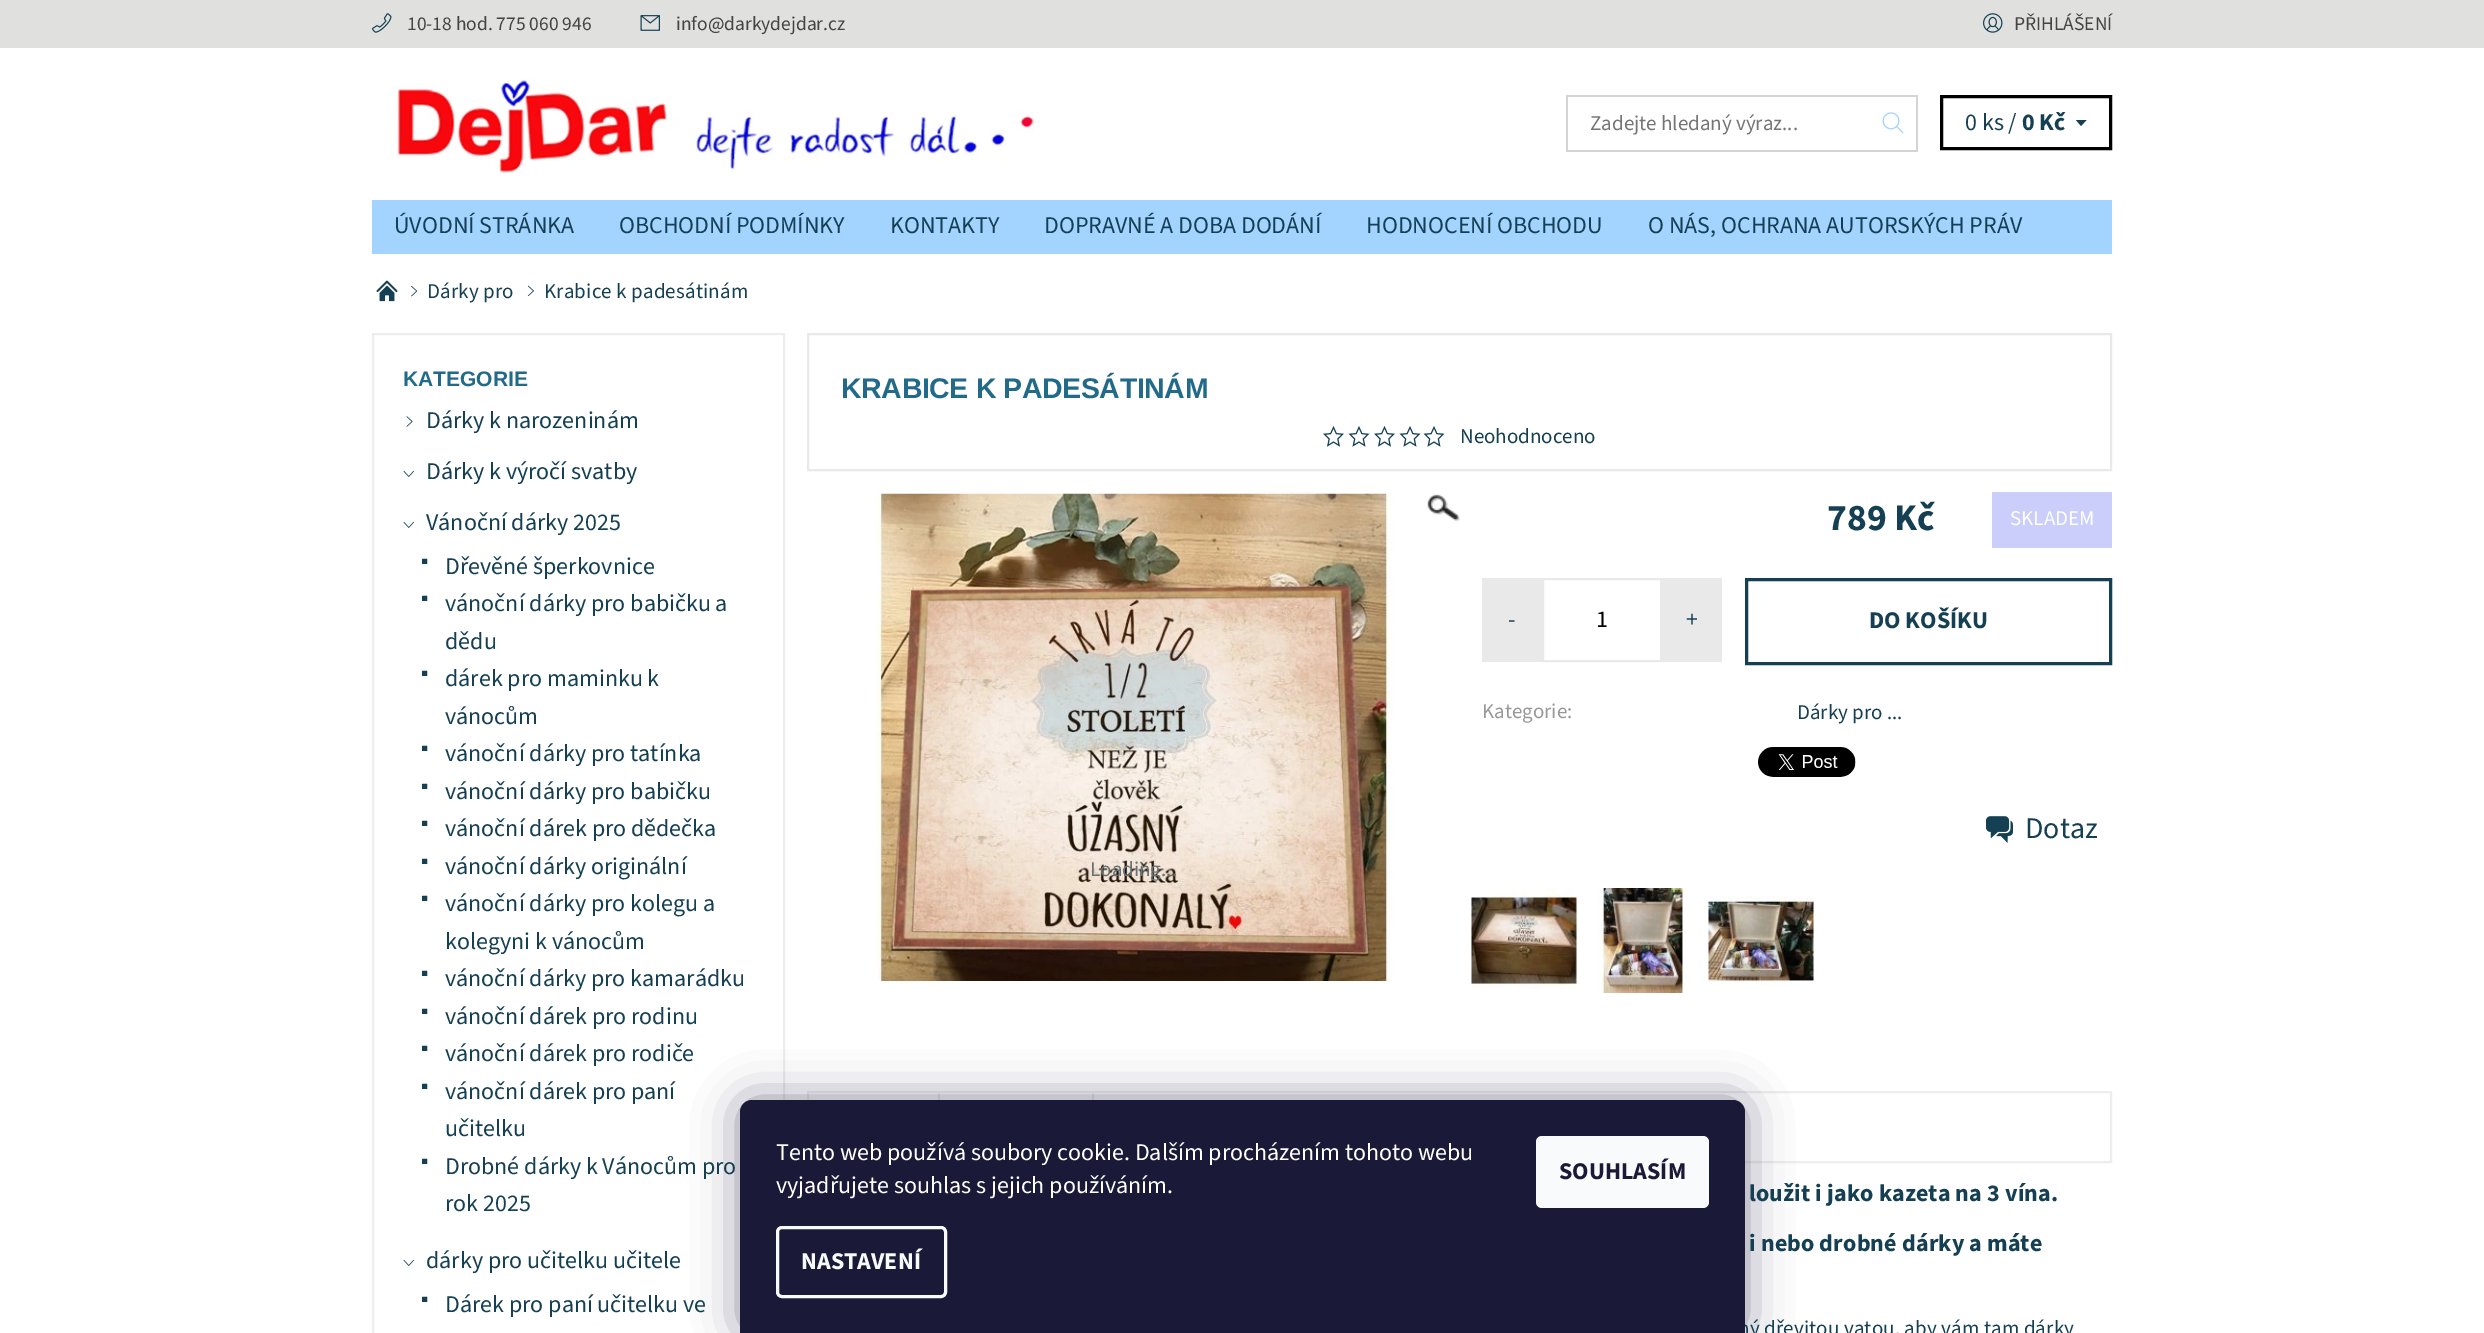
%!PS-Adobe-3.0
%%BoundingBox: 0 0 2484 1333
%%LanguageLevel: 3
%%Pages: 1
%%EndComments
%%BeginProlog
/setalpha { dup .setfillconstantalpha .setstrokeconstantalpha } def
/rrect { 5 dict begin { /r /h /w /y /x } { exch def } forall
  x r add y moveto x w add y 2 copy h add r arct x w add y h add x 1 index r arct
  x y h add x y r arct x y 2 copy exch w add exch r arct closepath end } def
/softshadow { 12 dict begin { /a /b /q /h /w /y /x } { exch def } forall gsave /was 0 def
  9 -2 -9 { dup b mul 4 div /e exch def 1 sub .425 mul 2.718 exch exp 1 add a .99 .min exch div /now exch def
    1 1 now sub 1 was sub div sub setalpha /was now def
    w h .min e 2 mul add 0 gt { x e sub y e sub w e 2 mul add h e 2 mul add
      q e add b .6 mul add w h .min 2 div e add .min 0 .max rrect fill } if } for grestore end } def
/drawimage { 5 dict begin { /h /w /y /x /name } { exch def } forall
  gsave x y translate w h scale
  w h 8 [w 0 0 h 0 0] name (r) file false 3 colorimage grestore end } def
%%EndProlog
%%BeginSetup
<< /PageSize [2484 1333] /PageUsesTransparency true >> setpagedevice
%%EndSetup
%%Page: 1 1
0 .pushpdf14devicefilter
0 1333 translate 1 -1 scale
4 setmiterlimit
1 setgray
0 0 2484 1333 rectfill
0.878 0.882 0.875 setrgbcolor
0 0 2484 48 rectfill
(images/1.raw) 372 13 20 20 drawimage
(images/2.raw) 640 15 20 16 drawimage
(images/3.raw) 1983 13 20 20 drawimage
(images/4.raw) 397 77 638 96 drawimage
0.831 setgray
1566 95 351 2 rectfill
1566 150 305 2 rectfill
1566 95 2 57 rectfill
1916 95 2 57 rectfill
1871 150 46 2 rectfill
(images/5.raw) 1882 112 22 22 drawimage
0 setgray
3 setlinewidth
1941.5 96.5 169 52 rectstroke
0.082 0.251 0.325 setrgbcolor
newpath 2081 120 moveto 2086.5 120 lineto 2081 126 lineto 2076 120 lineto closepath fill
0.639 0.827 1 setrgbcolor
372 200 1740 54 rectfill
(images/6.raw) 376 280 22 22 drawimage
(images/7.raw) 411 285 7 12 drawimage
(images/8.raw) 527 285 7 12 drawimage
0.929 setgray
2 setlinewidth
373 334 411 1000 rectstroke
(images/9.raw) 406 416 7 11 drawimage
(images/10.raw) 403 470 11 7 drawimage
(images/10.raw) 403 521 11 7 drawimage
(images/10.raw) 403 1259 11 7 drawimage
0.914 setgray
808 334 1303 136 rectstroke
(images/11.raw) 1323 426 21 21 drawimage
(images/12.raw) 1348 426 22 21 drawimage
(images/11.raw) 1374 426 21 21 drawimage
(images/12.raw) 1399 426 22 21 drawimage
(images/12.raw) 1423 426 22 21 drawimage
0.796 0.808 0.984 setrgbcolor
1992 492 120 56 rectfill
0.914 setgray
1482 578 60 84 rectfill
1543 579 118 82 rectstroke
1662 578 60 84 rectfill
0.082 0.251 0.325 setrgbcolor
3 setlinewidth
1746.5 579.5 364 84 rectstroke
(images/13.raw) 1758 747 98 30 drawimage
(images/14.raw) 1986 816 27 27 drawimage
(images/15.raw) 1471 888 106 101 drawimage
(images/16.raw) 1596 888 91 105 drawimage
(images/17.raw) 1708 896 106 90 drawimage
(images/18.raw) 1427 494 33 28 drawimage
(images/19.raw) 876 493 517 488 drawimage
0.929 setgray
2 setlinewidth
808 1092 1303 70 rectstroke
938 1092 2 8 rectfill
1092 1092 2 8 rectfill
0.106 0.098 0.224 setrgbcolor
740 1100 1005 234 12 22.5 0.5 softshadow
/SourceSans3-Regular [19.5 0 0 -19.5 0 0] selectfont
0.267 setgray
407 30 moveto (10-18 hod. 775 060 946) show
676 30 moveto (info@darkydejdar.cz) show
2014 30 moveto (PŘIHLÁŠENÍ) show
/SourceSans3-Regular [21 0 0 -21 0 0] selectfont
0.459 setgray
1590 130 moveto (Zadejte hledaný výraz...) show
/SourceSans3-Regular [24 0 0 -24 0 0] selectfont
0.082 0.251 0.325 setrgbcolor
1965 130 moveto (0 ks /) show
/SourceSans3-Bold [24 0 0 -24 0 0] selectfont
2022 130 moveto (0 Kč) show
/SourceSans3-Regular [24 0 0 -24 0 0] selectfont
394 233 moveto (ÚVODNÍ STRÁNKA) show
619 233 moveto (OBCHODNÍ PODMÍNKY) show
890 233 moveto (KONTAKTY) show
1044 233 moveto (DOPRAVNÉ A DOBA DODÁNÍ) show
1366 233 moveto (HODNOCENÍ OBCHODU) show
1648 233 moveto (O NÁS, OCHRANA AUTORSKÝCH PRÁV) show
/SourceSans3-Regular [21 0 0 -21 0 0] selectfont
427 298 moveto 0.15 0 (Dárky pro) ashow
544 298 moveto 0.15 0 (Krabice k padesátinám) ashow
/LiberationSans-Bold [21 0 0 -21 0 0] selectfont
0.133 0.416 0.541 setrgbcolor
403 386 moveto (KATEGORIE) show
/SourceSans3-Regular [24 0 0 -24 0 0] selectfont
0.082 0.251 0.325 setrgbcolor
426 428 moveto (Dárky k narozeninám) show
426 479 moveto (Dárky k výročí svatby) show
426 530 moveto (Vánoční dárky 2025) show
/LiberationSerif-Regular [21 0 0 -21 0 0] selectfont
421 568 moveto (▪) show
/SourceSans3-Regular [24 0 0 -24 0 0] selectfont
445 574 moveto (Dřevěné šperkovnice) show
/LiberationSerif-Regular [21 0 0 -21 0 0] selectfont
421 605 moveto (▪) show
/SourceSans3-Regular [24 0 0 -24 0 0] selectfont
445 611 moveto (vánoční dárky pro babičku a) show
445 649 moveto (dědu) show
/LiberationSerif-Regular [21 0 0 -21 0 0] selectfont
421 680 moveto (▪) show
/SourceSans3-Regular [24 0 0 -24 0 0] selectfont
445 686 moveto (dárek pro maminku k) show
445 724 moveto (vánocům) show
/LiberationSerif-Regular [21 0 0 -21 0 0] selectfont
421 755 moveto (▪) show
/SourceSans3-Regular [24 0 0 -24 0 0] selectfont
445 761 moveto (vánoční dárky pro tatínka) show
/LiberationSerif-Regular [21 0 0 -21 0 0] selectfont
421 793 moveto (▪) show
/SourceSans3-Regular [24 0 0 -24 0 0] selectfont
445 799 moveto (vánoční dárky pro babičku) show
/LiberationSerif-Regular [21 0 0 -21 0 0] selectfont
421 830 moveto (▪) show
/SourceSans3-Regular [24 0 0 -24 0 0] selectfont
445 836 moveto (vánoční dárek pro dědečka) show
/LiberationSerif-Regular [21 0 0 -21 0 0] selectfont
421 868 moveto (▪) show
/SourceSans3-Regular [24 0 0 -24 0 0] selectfont
445 874 moveto (vánoční dárky originální) show
/LiberationSerif-Regular [21 0 0 -21 0 0] selectfont
421 905 moveto (▪) show
/SourceSans3-Regular [24 0 0 -24 0 0] selectfont
445 911 moveto (vánoční dárky pro kolegu a) show
445 949 moveto (kolegyni k vánocům) show
/LiberationSerif-Regular [21 0 0 -21 0 0] selectfont
421 980 moveto (▪) show
/SourceSans3-Regular [24 0 0 -24 0 0] selectfont
445 986 moveto (vánoční dárky pro kamarádku) show
/LiberationSerif-Regular [21 0 0 -21 0 0] selectfont
421 1018 moveto (▪) show
/SourceSans3-Regular [24 0 0 -24 0 0] selectfont
445 1024 moveto (vánoční dárek pro rodinu) show
/LiberationSerif-Regular [21 0 0 -21 0 0] selectfont
421 1055 moveto (▪) show
/SourceSans3-Regular [24 0 0 -24 0 0] selectfont
445 1061 moveto (vánoční dárek pro rodiče) show
/LiberationSerif-Regular [21 0 0 -21 0 0] selectfont
421 1093 moveto (▪) show
/SourceSans3-Regular [24 0 0 -24 0 0] selectfont
445 1099 moveto (vánoční dárek pro paní) show
445 1136 moveto (učitelku) show
/LiberationSerif-Regular [21 0 0 -21 0 0] selectfont
421 1168 moveto (▪) show
/SourceSans3-Regular [24 0 0 -24 0 0] selectfont
445 1174 moveto (Drobné dárky k Vánocům pro) show
445 1211 moveto (rok 2025) show
426 1268 moveto (dárky pro učitelku učitele) show
/LiberationSerif-Regular [21 0 0 -21 0 0] selectfont
421 1306 moveto (▪) show
/SourceSans3-Regular [24 0 0 -24 0 0] selectfont
445 1312 moveto (Dárek pro paní učitelku ve) show
/LiberationSans-Bold [28.5 0 0 -28.5 0 0] selectfont
0.133 0.416 0.541 setrgbcolor
841 398 moveto -0.4 0 (KRABICE K PADESÁTINÁM) ashow
/SourceSans3-Regular [21 0 0 -21 0 0] selectfont
0.082 0.251 0.325 setrgbcolor
1460 443 moveto (Neohodnoceno) show
/SourceSans3-Bold [37.5 0 0 -37.5 0 0] selectfont
1827 530 moveto (789 Kč) show
/SourceSans3-Regular [21 0 0 -21 0 0] selectfont
1 setgray
2010 525 moveto (SKLADEM) show
/SourceSans3-Regular [24 0 0 -24 0 0] selectfont
0.082 0.251 0.325 setrgbcolor
1508 627 moveto (-) show
0 setgray
1596 627 moveto (1) show
0.082 0.251 0.325 setrgbcolor
1686 627 moveto (+) show
/SourceSans3-Bold [24 0 0 -24 0 0] selectfont
1869 628 moveto (DO KOŠÍKU) show
/SourceSans3-Regular [21 0 0 -21 0 0] selectfont
0.596 setgray
1482 718 moveto (Kategorie:) show
0.082 0.251 0.325 setrgbcolor
1797 719 moveto (Dárky pro ...) show
/SourceSans3-Regular [30 0 0 -30 0 0] selectfont
2025 838 moveto (Dotaz) show
/SourceSans3-Regular [21 0 0 -21 0 0] selectfont
0.392 0.447 0.459 setrgbcolor
1090 876 moveto (Loading...) show
/SourceSans3-Bold [24 0 0 -24 0 0] selectfont
0.082 0.251 0.325 setrgbcolor
1749 1201 moveto 0.15 0 (loužit i jako kazeta na 3 vína.) ashow
1749 1251 moveto 0.15 0 (i nebo drobné dárky a máte) ashow
/SourceSans3-Regular [21 0 0 -21 0 0] selectfont
1738 1335 moveto 0.15 0 (ný dřevitou vatou, aby vám tam dárky) ashow
0.102 0.098 0.216 setrgbcolor
newpath 752 1100 moveto 1733 1100 lineto 1739.5 1100 1745 1105.5 1745 1112 curveto 1745 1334 lineto 740 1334 lineto 740 1112 lineto 740 1105.5 745.5 1100 752 1100 curveto closepath fill
/SourceSans3-Regular [24 0 0 -24 0 0] selectfont
1 setgray
776 1160 moveto (Tento web používá soubory cookie. Dalším procházením tohoto webu) show
776 1193 moveto (vyjadřujete souhlas s jejich používáním.) show
0.973 0.98 0.984 setrgbcolor
3 setlinewidth
777.5 1227.5 168 69 4.5 rrect stroke
/SourceSans3-Bold [24 0 0 -24 0 0] selectfont
801 1269 moveto (NASTAVENÍ) show
1536 1136 173 72 6 rrect fill
0.102 0.098 0.216 setrgbcolor
1559 1179 moveto (SOUHLASÍM) show
.poppdf14devicefilter showpage
%%EOF
